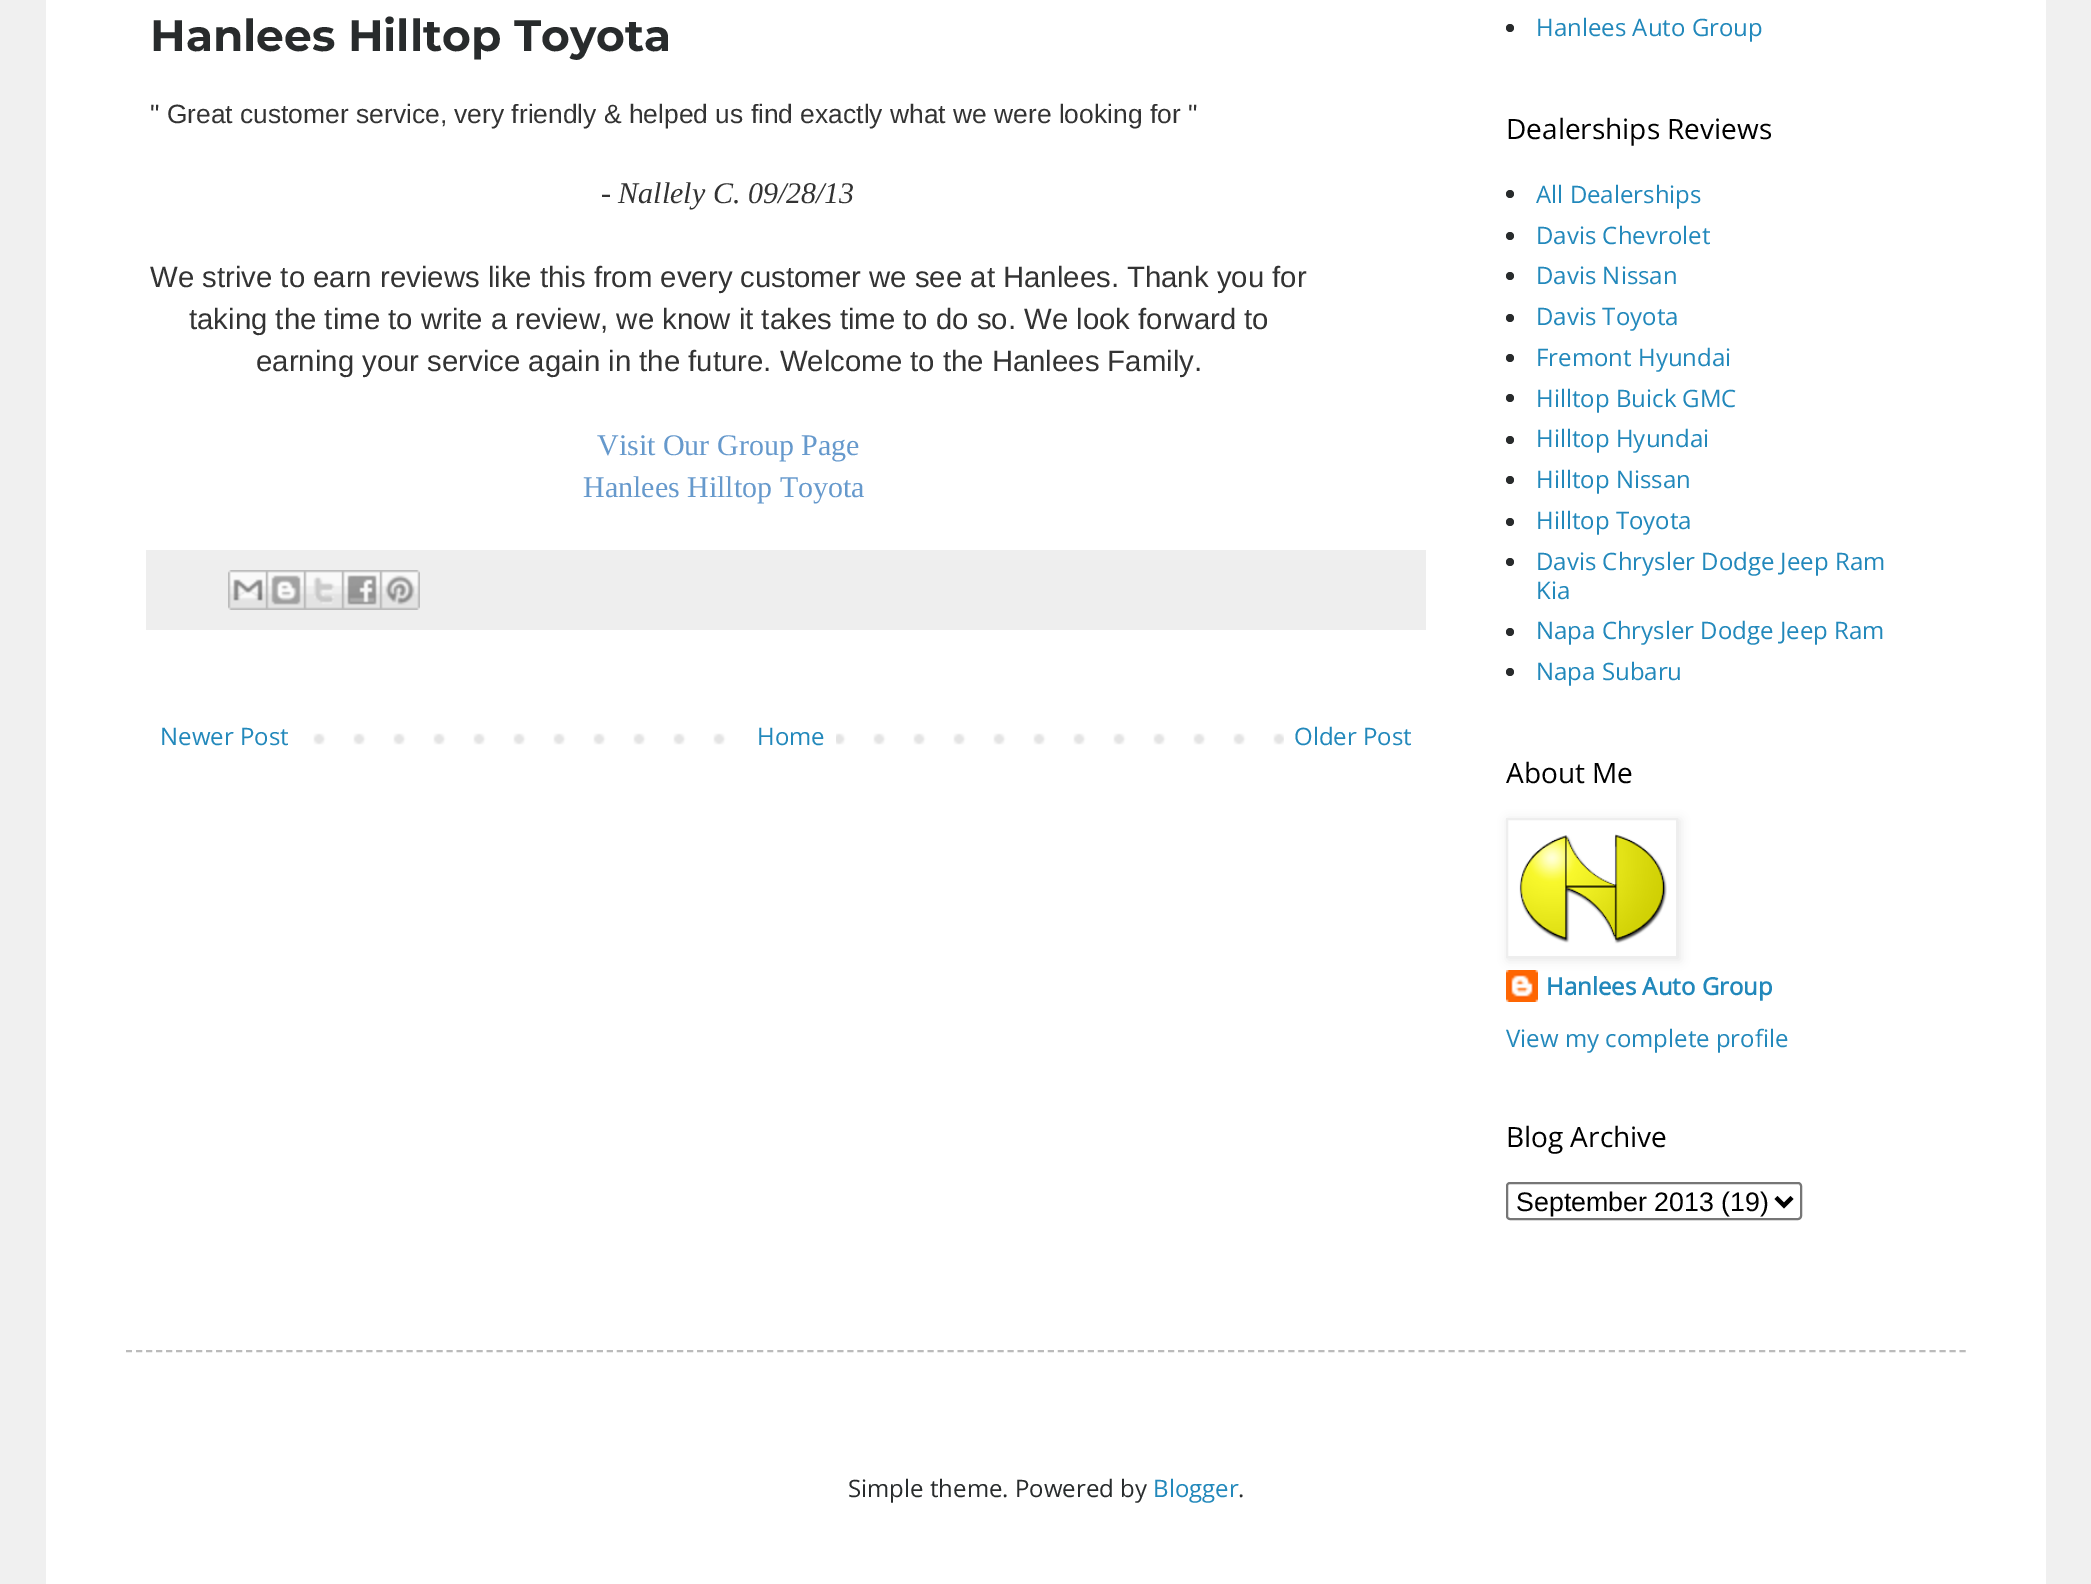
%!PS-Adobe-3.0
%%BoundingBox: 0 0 2091 1584
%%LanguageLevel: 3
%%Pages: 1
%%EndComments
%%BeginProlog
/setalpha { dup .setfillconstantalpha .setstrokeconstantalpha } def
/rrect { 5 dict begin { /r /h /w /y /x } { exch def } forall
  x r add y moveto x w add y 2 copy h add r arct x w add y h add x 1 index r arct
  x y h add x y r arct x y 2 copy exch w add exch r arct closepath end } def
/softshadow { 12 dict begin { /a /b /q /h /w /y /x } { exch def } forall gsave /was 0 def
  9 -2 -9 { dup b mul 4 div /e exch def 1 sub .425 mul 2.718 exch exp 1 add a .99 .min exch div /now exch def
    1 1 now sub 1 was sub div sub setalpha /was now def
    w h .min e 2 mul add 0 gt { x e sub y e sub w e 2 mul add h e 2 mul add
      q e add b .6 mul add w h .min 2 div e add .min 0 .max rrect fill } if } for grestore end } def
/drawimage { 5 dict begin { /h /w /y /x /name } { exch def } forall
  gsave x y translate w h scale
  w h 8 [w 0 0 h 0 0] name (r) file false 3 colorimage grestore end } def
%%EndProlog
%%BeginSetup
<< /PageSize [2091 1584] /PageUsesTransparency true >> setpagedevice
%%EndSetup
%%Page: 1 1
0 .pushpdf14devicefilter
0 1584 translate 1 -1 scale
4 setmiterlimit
0.941 setgray
0 0 2091 1584 rectfill
1 setgray
46 0 2000 1584 rectfill
0.933 setgray
146 550 1280 80 rectfill
(images/1.raw) 228 570 38 40 drawimage
(images/2.raw) 266 570 38 40 drawimage
(images/3.raw) 304 570 38 40 drawimage
(images/4.raw) 342 570 38 40 drawimage
(images/5.raw) 380 570 40 40 drawimage
(images/6.raw) 313 733 971 12 drawimage
1 setgray
753 733 83 12 rectfill
0.157 0.169 0.173 setrgbcolor
newpath 1510 28 4 0 360 arc closepath fill
newpath 1510 194 4 0 360 arc closepath fill
newpath 1510 236 4 0 360 arc closepath fill
newpath 1510 276 4 0 360 arc closepath fill
newpath 1510 318 4 0 360 arc closepath fill
newpath 1510 358 4 0 360 arc closepath fill
newpath 1510 398 4 0 360 arc closepath fill
newpath 1510 440 4 0 360 arc closepath fill
newpath 1510 480 4 0 360 arc closepath fill
newpath 1510 522 4 0 360 arc closepath fill
newpath 1510 562 4 0 360 arc closepath fill
newpath 1510 632 4 0 360 arc closepath fill
newpath 1510 672 4 0 360 arc closepath fill
(images/8.raw) 1506 970 32 32 drawimage
gsave
newpath 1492 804 moveto 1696 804 lineto 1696 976 lineto 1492 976 lineto closepath 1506 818 moveto 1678 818 lineto 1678 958 lineto 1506 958 lineto closepath eoclip newpath
0 setgray
1508 820 172 140 0 5 0.1 softshadow
grestore
0.933 setgray
2 setlinewidth
1507 819 170 138 rectstroke
(images/7.raw) 1519 834 148 110 drawimage
0.463 setgray
1507 1183 294 36 3 rrect stroke
0 setgray
4 setlinewidth
newpath 1776 1197.5 moveto 1784 1205.5 lineto 1792 1197.5 lineto stroke
0.733 setgray
2 setlinewidth
[6 4.02] 0 setdash
newpath 126 1351 moveto 1966 1351 lineto stroke
/Montserrat-Thin [44 0 0 -44 0 0] selectfont
0.157 0.169 0.173 setrgbcolor
150 51 moveto (Hanlees Hilltop Toyota) show
/LiberationSans-Regular [26.4 0 0 -26.4 0 0] selectfont
0.2 setgray
150 123 moveto (" Great customer service, very friendly & helped us find exactly what we were looking for ") show
/LiberationSerif-Italic [30 0 0 -30 0 0] selectfont
601 203 moveto (- Nallely C. 09/28/13) show
/LiberationSans-Regular [29.35 0 0 -29.35 0 0] selectfont
150 287 moveto (We strive to earn reviews like this from every customer we see at Hanlees. Thank you for) show
189 329 moveto (taking the time to write a review, we know it takes time to do so. We look forward to) show
256 371 moveto (earning your service again in the future. Welcome to the Hanlees Family.) show
/LiberationSerif-Regular [30 0 0 -30 0 0] selectfont
0.4 0.6 0.8 setrgbcolor
597 455 moveto (Visit Our Group Page) show
583 497 moveto (Hanlees Hilltop Toyota) show
/OpenSans-Regular [24 0 0 -24 0 0] selectfont
0.133 0.533 0.733 setrgbcolor
160 745 moveto (Newer Post) show
757 745 moveto (Home) show
1294 745 moveto (Older Post) show
1536 36 moveto (Hanlees Auto Group) show
/OpenSans-Regular [28 0 0 -28 0 0] selectfont
0 setgray
1506 139 moveto (Dealerships Reviews) show
/OpenSans-Regular [24 0 0 -24 0 0] selectfont
0.133 0.533 0.733 setrgbcolor
1536 203 moveto (All Dealerships) show
1536 244 moveto (Davis Chevrolet) show
1536 284 moveto (Davis Nissan) show
1536 325 moveto (Davis Toyota) show
1536 366 moveto (Fremont Hyundai) show
1536 407 moveto (Hilltop Buick GMC) show
1536 447 moveto (Hilltop Hyundai) show
1536 488 moveto (Hilltop Nissan) show
1536 529 moveto (Hilltop Toyota) show
1536 570 moveto (Davis Chrysler Dodge Jeep Ram) show
1536 599 moveto (Kia) show
1536 639 moveto (Napa Chrysler Dodge Jeep Ram) show
1536 680 moveto (Napa Subaru) show
/OpenSans-Regular [28 0 0 -28 0 0] selectfont
0 setgray
1506 783 moveto (About Me) show
/OpenSans-Bold [24 0 0 -24 0 0] selectfont
0.133 0.533 0.733 setrgbcolor
1546 995 moveto (Hanlees Auto Group) show
/OpenSans-Regular [24 0 0 -24 0 0] selectfont
1506 1047 moveto (View my complete profile) show
/OpenSans-Regular [28 0 0 -28 0 0] selectfont
0 setgray
1506 1147 moveto (Blog Archive) show
/LiberationSans-Regular [26.75 0 0 -26.75 0 0] selectfont
1516 1211 moveto (September 2013 \(19\)) show
/OpenSans-Regular [24 0 0 -24 0 0] selectfont
0.157 0.169 0.173 setrgbcolor
848 1497 moveto (Simple theme. Powered by) show
0.133 0.533 0.733 setrgbcolor
1153 1497 moveto (Blogger) show
0.157 0.169 0.173 setrgbcolor
1238 1497 moveto (.) show
.poppdf14devicefilter showpage
%%EOF
